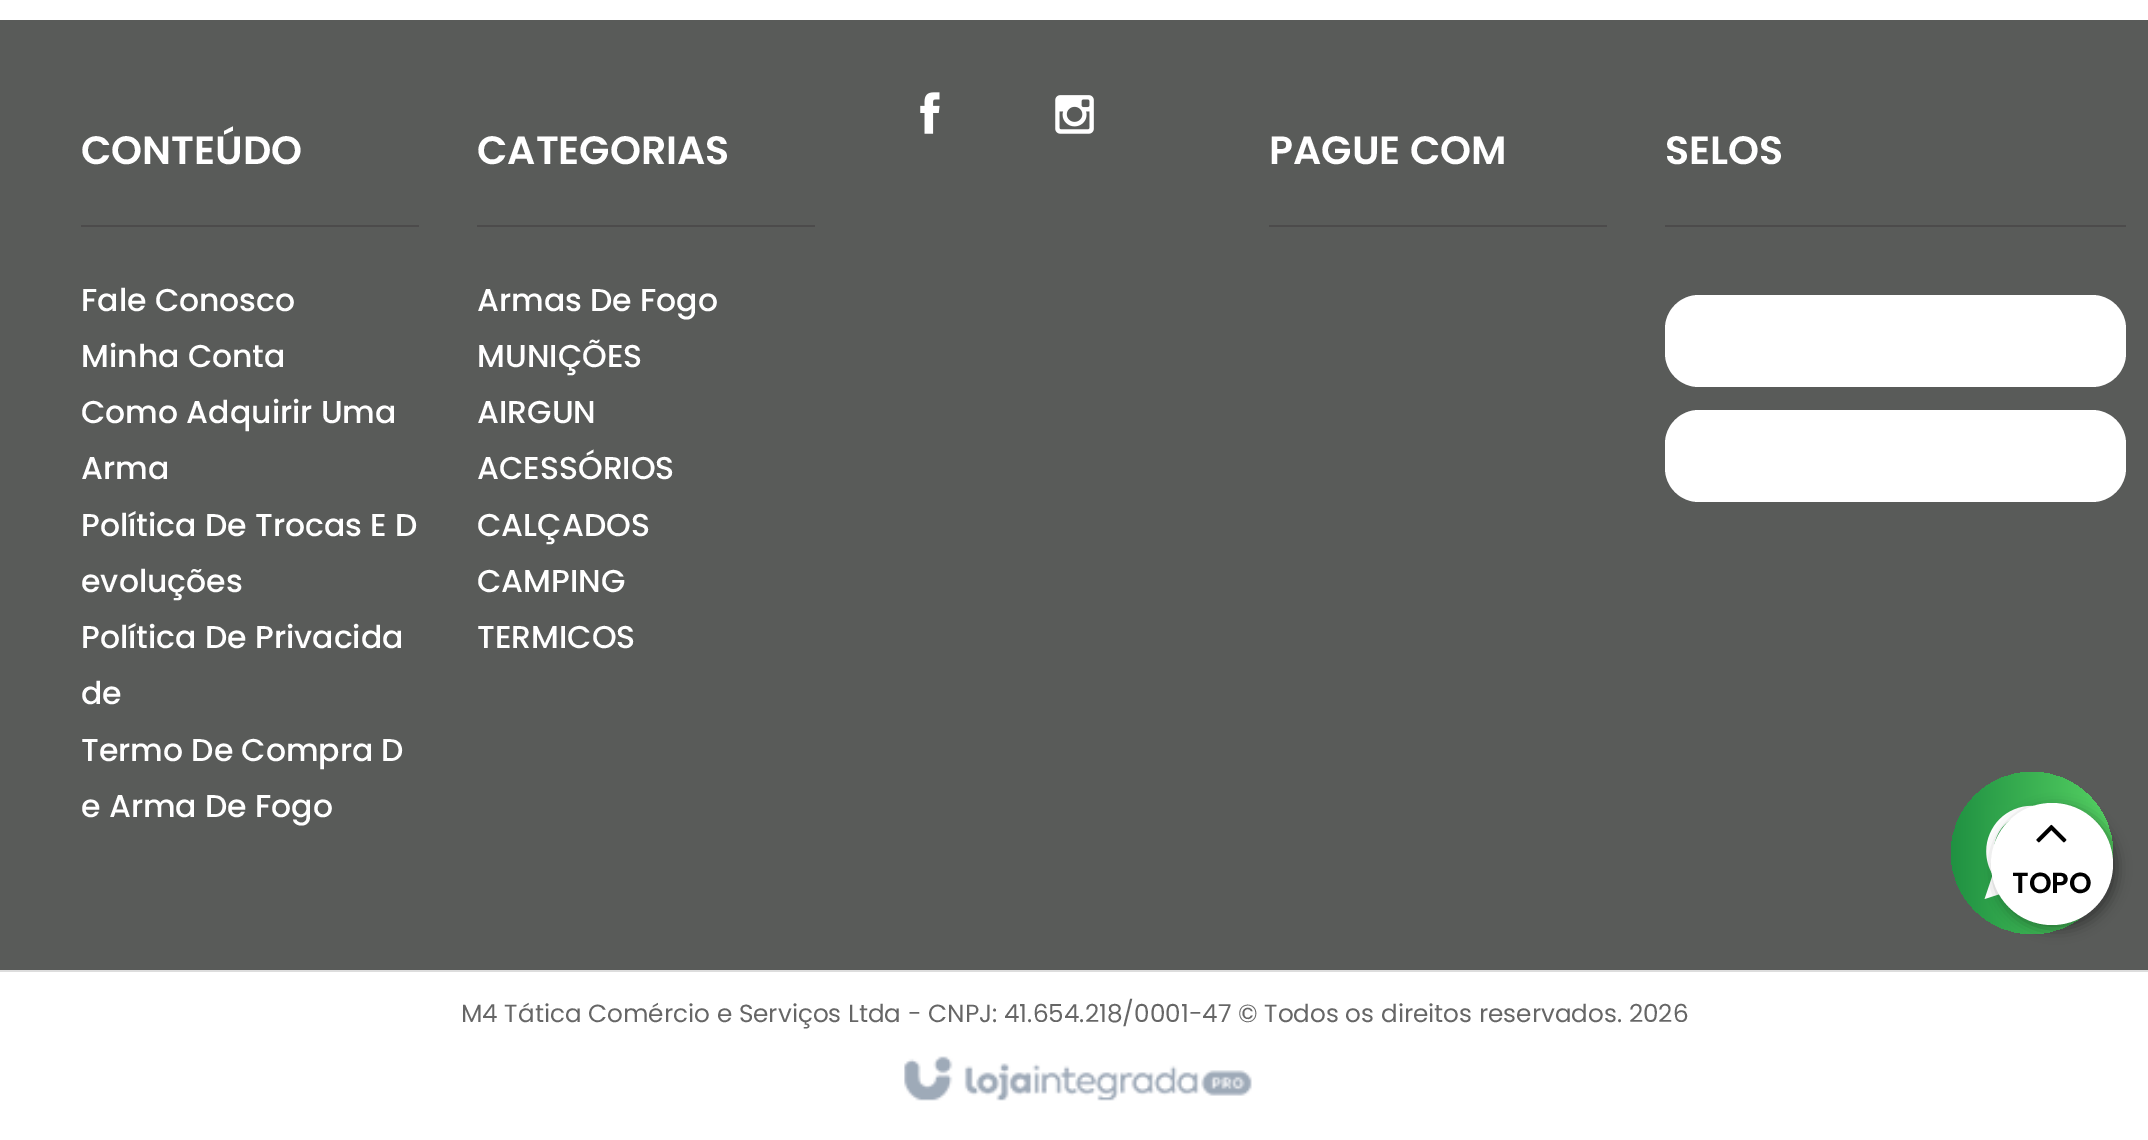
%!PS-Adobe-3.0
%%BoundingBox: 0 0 2148 1140
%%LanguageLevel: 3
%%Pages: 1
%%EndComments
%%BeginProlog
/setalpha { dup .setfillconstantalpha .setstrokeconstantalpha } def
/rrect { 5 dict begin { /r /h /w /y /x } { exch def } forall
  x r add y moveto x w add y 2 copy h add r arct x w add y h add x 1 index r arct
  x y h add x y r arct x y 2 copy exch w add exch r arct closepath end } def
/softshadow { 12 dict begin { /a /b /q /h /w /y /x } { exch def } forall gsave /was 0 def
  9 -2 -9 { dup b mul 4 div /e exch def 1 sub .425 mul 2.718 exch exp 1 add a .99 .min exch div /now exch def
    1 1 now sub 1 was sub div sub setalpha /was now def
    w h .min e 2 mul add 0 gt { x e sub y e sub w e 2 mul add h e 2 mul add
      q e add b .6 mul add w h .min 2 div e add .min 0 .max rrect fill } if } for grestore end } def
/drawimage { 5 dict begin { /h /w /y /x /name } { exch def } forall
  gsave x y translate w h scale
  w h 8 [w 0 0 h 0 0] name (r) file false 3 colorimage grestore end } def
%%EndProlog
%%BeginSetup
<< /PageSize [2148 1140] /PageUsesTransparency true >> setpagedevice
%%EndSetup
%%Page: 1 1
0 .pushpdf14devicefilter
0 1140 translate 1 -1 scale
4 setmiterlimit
1 setgray
0 0 2148 1140 rectfill
0.349 0.357 0.349 setrgbcolor
0 20 2148 950 rectfill
(images/1.raw) 920 92 20 42 drawimage
(images/2.raw) 1055 95 39 39 drawimage
0.298 0.294 0.294 setrgbcolor
81 225 338 2 rectfill
477 225 338 2 rectfill
1269 225 338 2 rectfill
1665 225 461 2 rectfill
1 setgray
1665 295 461 92 34 rrect fill
1665 410 461 92 34 rrect fill
0.867 setgray
0 970 2148 2 rectfill
(images/3.raw) 904 1056 348 45 drawimage
gsave newpath 2032 853 81 0 360 arc closepath clip newpath
<< /ShadingType 2 /ColorSpace /DeviceRGB /Coords [1951 853 2113 853] /Extend [true true] /Function << /FunctionType 2 /Domain [0 1] /C0 [0.125 0.569 0.259] /C1 [0.337 0.824 0.388] /N 1 >> >> shfill grestore
(images/4.raw) 1984 805 52 94 drawimage
0 setgray
1996 808 121 121 60.5 7 0.4 softshadow
1 setgray
newpath 2052 864 61 0 360 arc closepath fill
(images/5.raw) 2036 824 31 19 drawimage
/Poppins-SemiBold [39.5 0 0 -39.5 0 0] selectfont
81 164 moveto (CONTEÚDO) show
/Poppins-Medium [31.5 0 0 -31.5 0 0] selectfont
81 311 moveto (Fale Conosco) show
81 367 moveto (Minha Conta) show
81 423 moveto (Como Adquirir Uma) show
81 479 moveto (Arma) show
81 536 moveto (Política De Trocas E D) show
81 592 moveto (evoluções) show
81 648 moveto (Política De Privacida) show
81 704 moveto (de) show
81 761 moveto (Termo De Compra D) show
81 817 moveto (e Arma De Fogo) show
/Poppins-SemiBold [39.5 0 0 -39.5 0 0] selectfont
477 164 moveto (CATEGORIAS) show
/Poppins-Medium [31.5 0 0 -31.5 0 0] selectfont
477 311 moveto (Armas De Fogo) show
477 367 moveto (MUNIÇÕES) show
477 423 moveto (AIRGUN) show
477 479 moveto (ACESSÓRIOS) show
477 536 moveto (CALÇADOS) show
477 592 moveto (CAMPING) show
477 648 moveto (TERMICOS) show
/Poppins-SemiBold [39.5 0 0 -39.5 0 0] selectfont
1269 164 moveto (PAGUE COM) show
1665 164 moveto (SELOS) show
/Poppins-Regular [24.75 0 0 -24.75 0 0] selectfont
0.4 setgray
461 1022 moveto (M4 Tática Comércio e Serviços Ltda - CNPJ: 41.654.218/0001-47 © Todos os direitos reservados. 2026) show
/Poppins-SemiBold [29 0 0 -29 0 0] selectfont
0 setgray
2012 893 moveto (TOPO) show
.poppdf14devicefilter showpage
%%EOF
